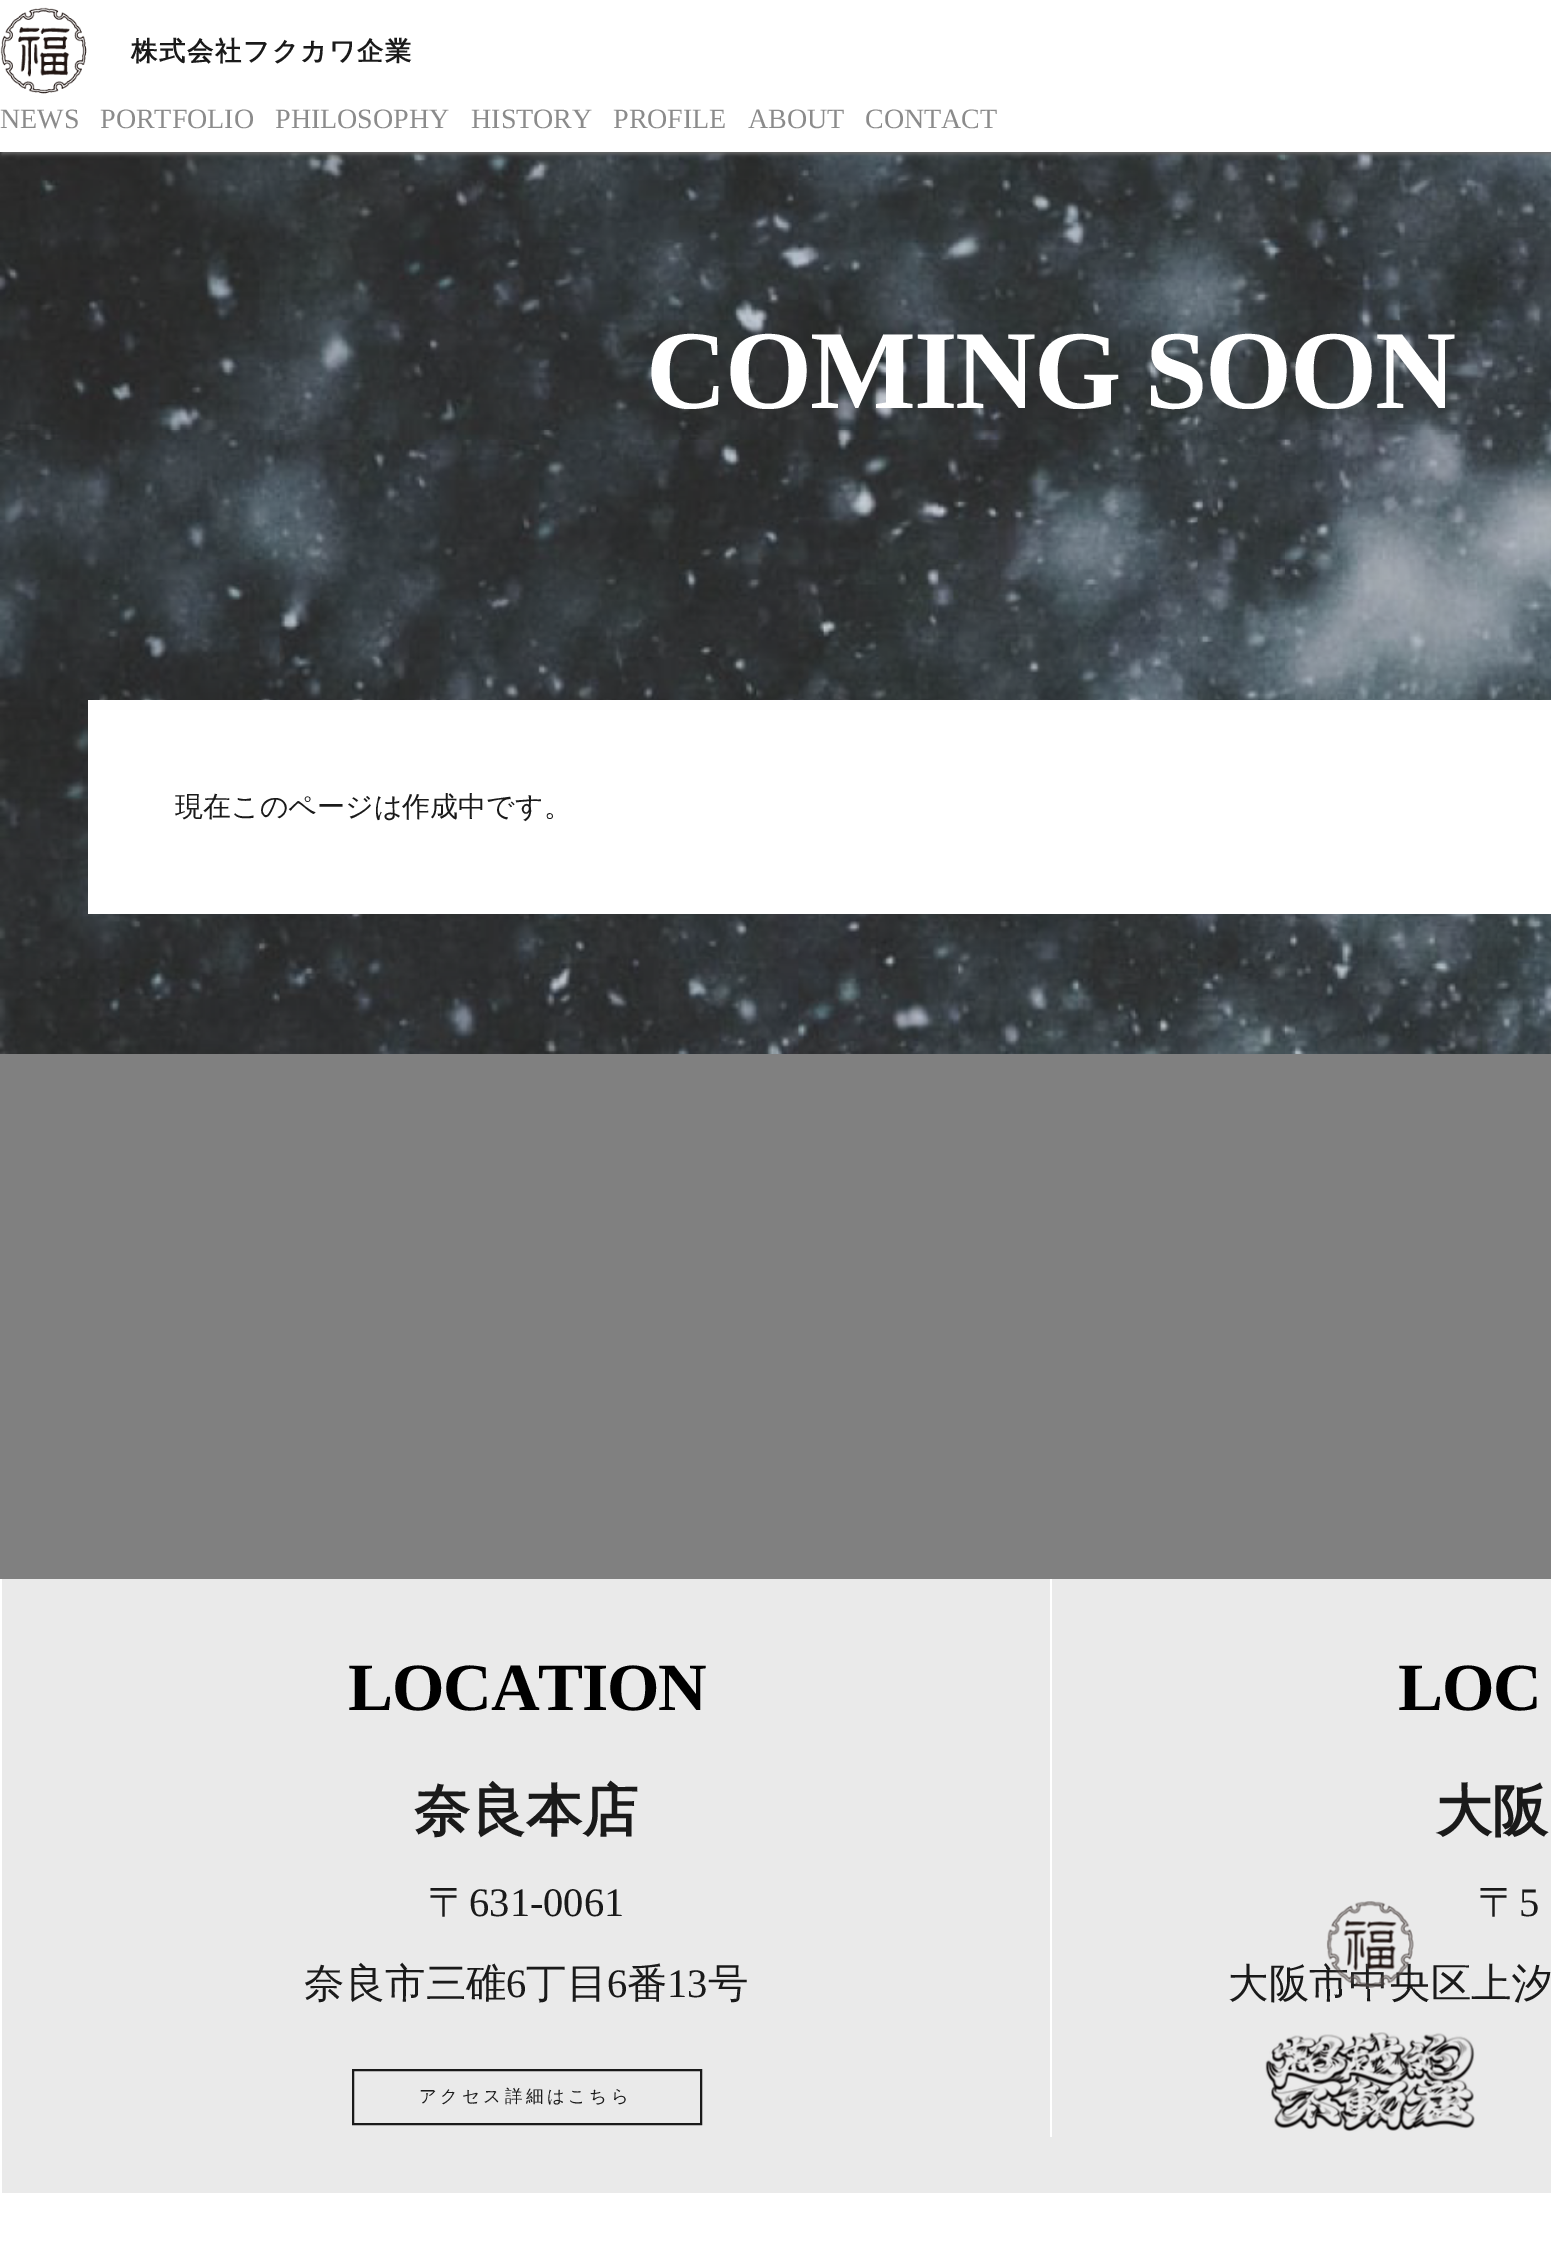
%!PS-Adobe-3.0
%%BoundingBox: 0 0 1551 2245
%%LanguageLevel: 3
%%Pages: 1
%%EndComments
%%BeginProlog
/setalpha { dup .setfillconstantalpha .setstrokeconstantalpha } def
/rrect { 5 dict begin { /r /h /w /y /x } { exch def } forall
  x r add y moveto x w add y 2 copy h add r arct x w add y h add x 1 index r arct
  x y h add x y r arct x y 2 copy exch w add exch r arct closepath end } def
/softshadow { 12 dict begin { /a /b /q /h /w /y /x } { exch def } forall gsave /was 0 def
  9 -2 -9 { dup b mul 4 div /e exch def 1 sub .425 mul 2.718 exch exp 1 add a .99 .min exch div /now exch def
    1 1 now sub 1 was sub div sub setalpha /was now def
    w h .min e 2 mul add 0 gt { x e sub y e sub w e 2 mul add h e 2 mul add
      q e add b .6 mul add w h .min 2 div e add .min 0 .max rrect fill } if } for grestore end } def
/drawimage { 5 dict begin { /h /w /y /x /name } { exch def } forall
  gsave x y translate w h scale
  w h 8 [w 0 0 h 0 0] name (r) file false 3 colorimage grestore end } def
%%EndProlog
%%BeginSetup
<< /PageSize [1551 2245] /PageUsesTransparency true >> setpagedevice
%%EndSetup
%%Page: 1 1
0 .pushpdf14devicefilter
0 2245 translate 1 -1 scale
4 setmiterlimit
1 setgray
0 0 1551 2245 rectfill
(images/2.raw) 0 152 1551 902 drawimage
0.416 setgray
2 2 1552 152 0 2 1 softshadow
1 setgray
0 0 1551 152 rectfill
(images/1.raw) 0 7 87 87 drawimage
88 700 1463 214 rectfill
0.918 setgray
2 1579 1549 614 rectfill
0.502 setgray
0 1054 1551 525 rectfill
0.102 setgray
2 setlinewidth
353 2070 348 54 rectstroke
1 setgray
1050 1579 2 558 rectfill
(images/4.raw) 1265 2032 210 100 drawimage
/WenQuanYiZenHei-Bold [26.25 0 0 -26.25 0 0] selectfont
0.102 setgray
131 60 moveto 1.75 0 (株式会社フクカワ企業) ashow
/LiberationSerif-Regular [28 0 0 -28 0 0] selectfont
0.545 setgray
0 128 moveto (NEWS) show
100 128 moveto (PORTFOLIO) show
275 128 moveto (PHILOSOPHY) show
471 128 moveto (HISTORY) show
613 128 moveto (PROFILE) show
748 128 moveto (ABOUT) show
865 128 moveto (CONTACT) show
/LiberationSerif-Bold [112.25 0 0 -112.25 0 0] selectfont
1 setgray
646 408 moveto -2.25 0 (COMING SOON) ashow
/WenQuanYiZenHei-Medium [28 0 0 -28 0 0] selectfont
0.102 setgray
175 816 moveto (現在このページは作成中です。) show
/LiberationSerif-Bold [67.5 0 0 -67.5 0 0] selectfont
0 setgray
348 1710 moveto -1.25 0 (LOCATION) ashow
/WenQuanYiZenHei-Bold [56 0 0 -56 0 0] selectfont
0.102 setgray
414 1830 moveto (奈良本店) show
/WenQuanYiZenHei-Medium [40.5 0 0 -40.5 0 0] selectfont
428 1916 moveto (〒) show
/LiberationSerif-Regular [40.5 0 0 -40.5 0 0] selectfont
469 1916 moveto (631-0061) show
/WenQuanYiZenHei-Medium [40.5 0 0 -40.5 0 0] selectfont
304 1997 moveto (奈良市三碓) show
/LiberationSerif-Regular [40.5 0 0 -40.5 0 0] selectfont
506 1997 moveto (6) show
/WenQuanYiZenHei-Medium [40.5 0 0 -40.5 0 0] selectfont
526 1997 moveto (丁目) show
/LiberationSerif-Regular [40.5 0 0 -40.5 0 0] selectfont
607 1997 moveto (6) show
/WenQuanYiZenHei-Medium [40.5 0 0 -40.5 0 0] selectfont
627 1997 moveto (番) show
/LiberationSerif-Regular [40.5 0 0 -40.5 0 0] selectfont
667 1997 moveto (13) show
/WenQuanYiZenHei-Medium [40.5 0 0 -40.5 0 0] selectfont
708 1997 moveto (号) show
/WenQuanYiZenHei-Medium [17.5 0 0 -17.5 0 0] selectfont
419 2102 moveto 3.5 0 (アクセス詳細はこちら) ashow
/LiberationSerif-Bold [67.5 0 0 -67.5 0 0] selectfont
0 setgray
1398 1710 moveto -1.25 0 (LOC) ashow
/WenQuanYiZenHei-Bold [56 0 0 -56 0 0] selectfont
0.102 setgray
1436 1830 moveto (大阪) show
/WenQuanYiZenHei-Medium [40.5 0 0 -40.5 0 0] selectfont
1478 1916 moveto (〒) show
/LiberationSerif-Regular [40.5 0 0 -40.5 0 0] selectfont
1519 1916 moveto (5) show
/WenQuanYiZenHei-Medium [40.5 0 0 -40.5 0 0] selectfont
1228 1997 moveto (大阪市中央区上汐) show
(images/3.raw) 1326 1901 88 88 drawimage
.poppdf14devicefilter showpage
%%EOF
